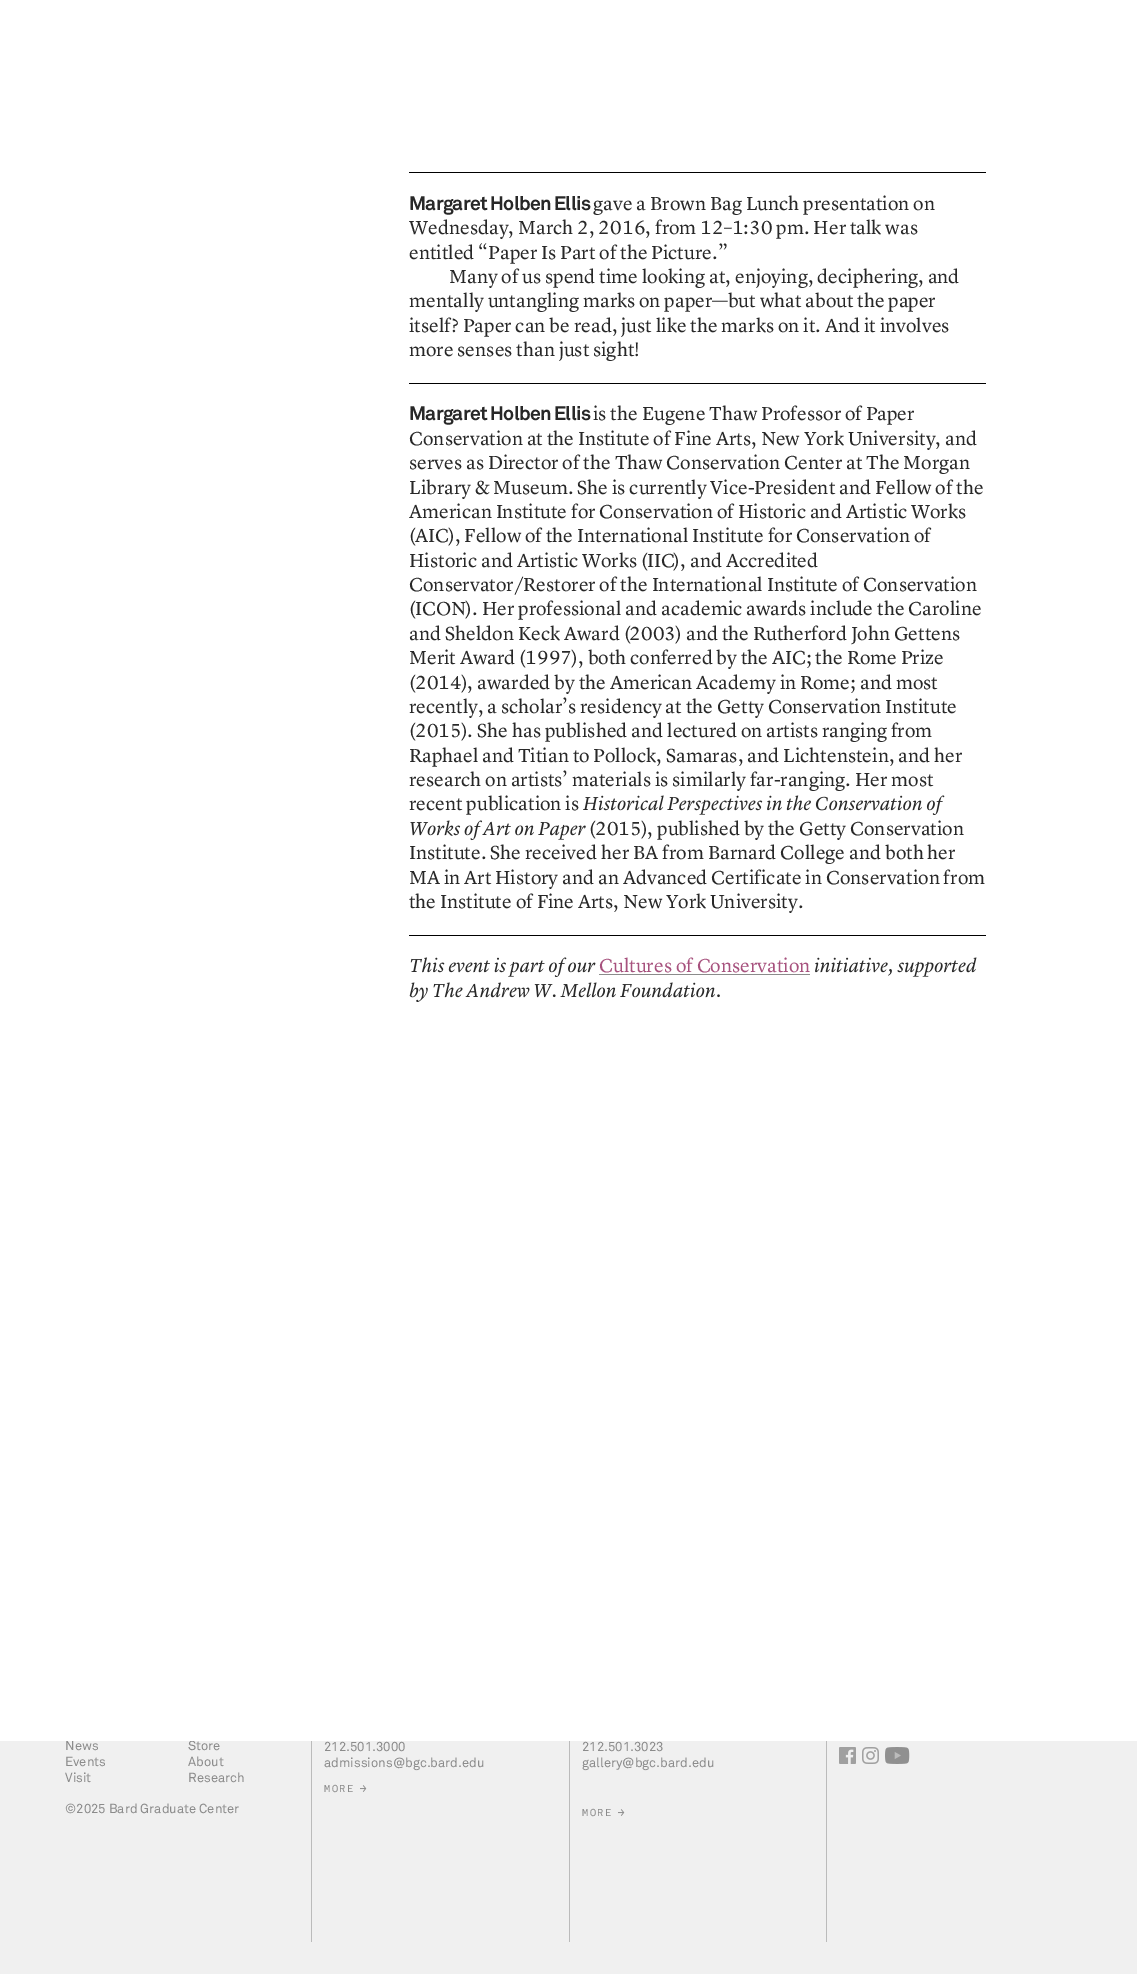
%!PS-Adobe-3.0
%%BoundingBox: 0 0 1137 1974
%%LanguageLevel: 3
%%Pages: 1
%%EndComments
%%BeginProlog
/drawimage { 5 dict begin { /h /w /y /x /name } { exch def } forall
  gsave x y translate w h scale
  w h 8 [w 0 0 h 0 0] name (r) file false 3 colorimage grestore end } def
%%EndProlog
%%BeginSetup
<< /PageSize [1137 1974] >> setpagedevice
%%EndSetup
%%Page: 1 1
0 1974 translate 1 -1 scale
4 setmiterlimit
0.941 setgray
0 0 1137 1974 rectfill
0.733 setgray
311 1741 1 201 rectfill
(images/6.raw) 360 1785 7 7 drawimage
569 1741 1 201 rectfill
(images/6.raw) 618 1809 7 7 drawimage
826 1741 1 201 rectfill
(images/7.raw) 839 1747 17 17 drawimage
(images/8.raw) 862 1747 17 17 drawimage
(images/9.raw) 885 1747 25 17 drawimage
/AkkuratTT-Regular [13 0 0 -13 0 0] selectfont
0.545 setgray
65 1750 moveto (News) show
188 1750 moveto (Store) show
1 setgray
0 0 1137 1741 rectfill
0 setgray
409 935 577 1 rectfill
409 383 577 1 rectfill
409 172 577 1 rectfill
(images/5.raw) 409 982 311 20 drawimage
(images/4.raw) 815 957 162 20 drawimage
/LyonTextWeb-Regular [19.5 0 0 -19.5 0 0] selectfont
0.655 0.322 0.494 setrgbcolor
599 972 moveto (Cultures of Conservation) show
0.545 setgray
599 974 211 1 rectfill
(images/3.raw) 410 957 186 20 drawimage
0.157 setgray
409 908 moveto (the Institute of Fine Arts, New York University.) show
409 884 moveto (MA in Art History and an Advanced Certificate in Conservation from) show
409 859 moveto (Institute. She received her BA from Barnard College and both her) show
589 835 moveto (\(2015\), published by the Getty Conservation) show
(images/2.raw) 410 820 176 21 drawimage
(images/1.raw) 583 795 362 20 drawimage
409 810 moveto (recent publication is) show
409 786 moveto (research on artists’ materials is similarly far-ranging. Her most) show
409 762 moveto (Raphael and Titian to Pollock, Samaras, and Lichtenstein, and her) show
409 737 moveto (\(2015\). She has published and lectured on artists ranging from) show
409 713 moveto (recently, a scholar’s residency at the Getty Conservation Institute) show
409 689 moveto (\(2014\), awarded by the American Academy in Rome; and most) show
409 664 moveto (Merit Award \(1997\), both conferred by the AIC; the Rome Prize) show
409 640 moveto (and Sheldon Keck Award \(2003\) and the Rutherford John Gettens) show
409 615 moveto (\(ICON\). Her professional and academic awards include the Caroline) show
409 591 moveto (Conservator/Restorer of the International Institute of Conservation) show
409 567 moveto (Historic and Artistic Works \(IIC\), and Accredited) show
409 542 moveto (\(AIC\), Fellow of the International Institute for Conservation of) show
409 518 moveto (American Institute for Conservation of Historic and Artistic Works) show
409 494 moveto (Library & Museum. She is currently Vice-President and Fellow of the) show
409 469 moveto (serves as Director of the Thaw Conservation Center at The Morgan) show
409 445 moveto (Conservation at the Institute of Fine Arts, New York University, and) show
593 420 moveto (is the Eugene Thaw Professor of Paper) show
/AkkuratTT-Bold [19.5 0 0 -19.5 0 0] selectfont
409 420 moveto -0.75 0 (Margaret Holben Ellis) ashow
/LyonTextWeb-Regular [19.5 0 0 -19.5 0 0] selectfont
409 356 moveto (more senses than just sight!) show
409 332 moveto (itself? Paper can be read, just like the marks on it. And it involves) show
409 307 moveto (mentally untangling marks on paper—but what about the paper) show
449 283 moveto (Many of us spend time looking at, enjoying, deciphering, and) show
409 259 moveto (entitled “Paper Is Part of the Picture.”) show
409 234 moveto (Wednesday, March 2, 2016, from 12–1:30 pm. Her talk was) show
593 210 moveto (gave a Brown Bag Lunch presentation on) show
/AkkuratTT-Bold [19.5 0 0 -19.5 0 0] selectfont
409 210 moveto -0.75 0 (Margaret Holben Ellis) ashow
/AkkuratTT-Regular [13 0 0 -13 0 0] selectfont
0.545 setgray
65 1766 moveto (Events) show
188 1766 moveto (About) show
65 1782 moveto (Visit) show
188 1782 moveto (Research) show
65 1813 moveto (©2025 Bard Graduate Center) show
324 1751 moveto (212.501.3000) show
324 1767 moveto (admissions@bgc.bard.edu) show
/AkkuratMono-Regular [10 0 0 -10 0 0] selectfont
324 1792 moveto 1.5 0 (MORE) ashow
/AkkuratTT-Regular [13 0 0 -13 0 0] selectfont
582 1751 moveto (212.501.3023) show
582 1767 moveto (gallery@bgc.bard.edu) show
/AkkuratMono-Regular [10 0 0 -10 0 0] selectfont
582 1816 moveto 1.5 0 (MORE) ashow
showpage
%%EOF
